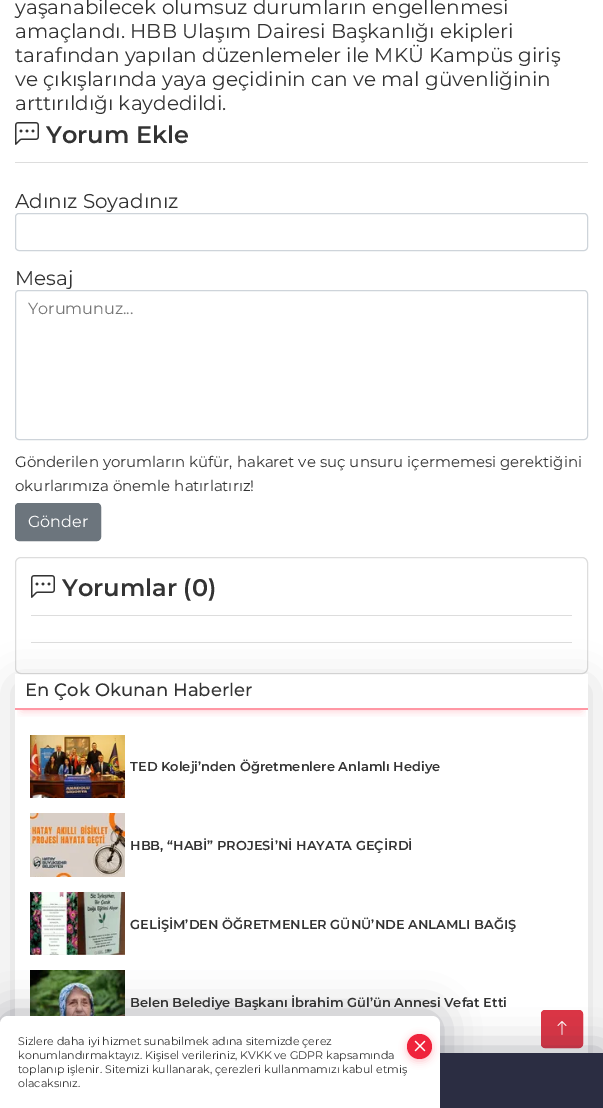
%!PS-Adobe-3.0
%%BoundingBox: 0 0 603 1108
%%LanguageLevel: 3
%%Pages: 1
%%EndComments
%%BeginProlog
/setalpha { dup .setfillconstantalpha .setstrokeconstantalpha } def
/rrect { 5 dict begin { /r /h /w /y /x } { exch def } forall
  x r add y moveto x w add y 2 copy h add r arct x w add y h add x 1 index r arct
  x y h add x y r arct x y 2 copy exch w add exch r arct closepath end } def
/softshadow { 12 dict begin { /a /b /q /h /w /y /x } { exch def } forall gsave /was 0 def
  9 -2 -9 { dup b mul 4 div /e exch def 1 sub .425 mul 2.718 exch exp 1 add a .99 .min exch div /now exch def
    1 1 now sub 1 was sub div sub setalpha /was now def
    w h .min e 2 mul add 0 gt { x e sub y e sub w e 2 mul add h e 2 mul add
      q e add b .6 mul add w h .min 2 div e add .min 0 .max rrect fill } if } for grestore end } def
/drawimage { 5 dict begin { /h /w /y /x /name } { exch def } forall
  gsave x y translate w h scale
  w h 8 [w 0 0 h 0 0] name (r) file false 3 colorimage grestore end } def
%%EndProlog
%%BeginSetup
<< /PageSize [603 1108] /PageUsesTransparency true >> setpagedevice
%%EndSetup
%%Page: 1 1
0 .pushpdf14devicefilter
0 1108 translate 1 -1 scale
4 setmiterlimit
1 setgray
0 0 603 1108 rectfill
0.867 setgray
15 162 573 1 rectfill
(images/1.raw) 15 122 24 23 drawimage
0.808 0.831 0.855 setrgbcolor
15.5 213.5 572 37 3.5 rrect stroke
15.5 290.5 572 149 3.5 rrect stroke
0.424 0.459 0.49 setrgbcolor
15.5 503.5 85 37 3.5 rrect gsave fill grestore
stroke
0.867 setgray
15.5 557.5 572 116 5.5 rrect stroke
31 615 541 1 rectfill
(images/1.raw) 31 575 24 23 drawimage
31 642 541 1 rectfill
gsave
newpath 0 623 moveto 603 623 lineto 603 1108 lineto 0 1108 lineto closepath 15 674 moveto 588 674 lineto 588 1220 lineto 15 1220 lineto closepath eoclip newpath
0 setgray
15 684 573 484 0 20 0.15 softshadow
grestore
gsave
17 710 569 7 rectclip
1 0.337 0.416 setrgbcolor
22 688 559 22 0 4.5 0.38 softshadow
grestore
1 0.592 0.643 setrgbcolor
15 708 573 2 rectfill
(images/2.raw) 30 735 95 63 drawimage
(images/3.raw) 30 813 95 64 drawimage
(images/4.raw) 30 892 95 63 drawimage
(images/5.raw) 30 970 95 46 drawimage
0.863 0.208 0.271 setrgbcolor
541.5 1010.5 41 37 3.5 rrect gsave fill grestore
stroke
(images/6.raw) 557 1021 10 14 drawimage
0.169 0.176 0.259 setrgbcolor
0 1050 603 55 0 19 0.36 softshadow
440 1053 163 55 rectfill
0 1013 440 92 8 19 0.36 softshadow
1 setgray
newpath 8 1016 moveto 432 1016 lineto 436.5 1016 440 1019.5 440 1024 curveto 440 1108 lineto 0 1108 lineto 0 1024 lineto 0 1019.5 3.5 1016 8 1016 curveto closepath fill
1 0.337 0.416 setrgbcolor
407 1036 25 25 12.5 4 0.38 softshadow
0.937 0.137 0.235 setrgbcolor
newpath 419.5 1046.5 12.5 0 360 arc closepath fill
(images/7.raw) 414 1040 12 12 drawimage
/Montserrat-Regular [20 0 0 -20 0 0] selectfont
0.2 setgray
15 14 moveto (yaşanabilecek olumsuz durumların engellenmesi) show
15 38 moveto (amaçlandı. HBB Ulaşım Dairesi Başkanlığı ekipleri) show
15 62 moveto (tarafından yapılan düzenlemeler ile MKÜ Kampüs giriş) show
15 86 moveto (ve çıkışlarında yaya geçidinin can ve mal güvenliğinin) show
15 110 moveto (arttırıldığı kaydedildi.) show
/Montserrat-SemiBold [24 0 0 -24 0 0] selectfont
46 143 moveto (Yorum Ekle) show
/Montserrat-Regular [20 0 0 -20 0 0] selectfont
15 208 moveto (Adınız Soyadınız) show
15 285 moveto (Mesaj) show
/Montserrat-Regular [16 0 0 -16 0 0] selectfont
0.459 setgray
28 314 moveto (Yorumunuz...) show
/Montserrat-Regular [15 0 0 -15 0 0] selectfont
0.2 setgray
15 467 moveto (Gönderilen yorumların küfür, hakaret ve suç unsuru içermemesi gerektiğini) show
15 491 moveto (okurlarımıza önemle hatırlatırız!) show
/Montserrat-Regular [16 0 0 -16 0 0] selectfont
1 setgray
28 527 moveto (Gönder) show
/Montserrat-SemiBold [24 0 0 -24 0 0] selectfont
0.2 setgray
62 596 moveto (Yorumlar \(0\)) show
/Montserrat-Medium [18 0 0 -18 0 0] selectfont
25 696 moveto (En Çok Okunan Haberler) show
/Montserrat-SemiBold [13 0 0 -13 0 0] selectfont
130 771 moveto (TED Koleji’nden Öğretmenlere Anlamlı Hediye) show
130 850 moveto (HBB, “HABİ” PROJESİ’Nİ HAYATA GEÇİRDİ) show
130 929 moveto (GELİŞİM’DEN ÖĞRETMENLER GÜNÜ’NDE ANLAMLI BAĞIŞ) show
130 1007 moveto (Belen Belediye Başkanı İbrahim Gül’ün Annesi Vefat Etti) show
/Montserrat-Regular [11 0 0 -11 0 0] selectfont
18 1045 moveto (Sizlere daha iyi hizmet sunabilmek adına sitemizde çerez) show
18 1059 moveto (konumlandırmaktayız. Kişisel verileriniz, KVKK ve GDPR kapsamında) show
18 1073 moveto (toplanıp işlenir. Sitemizi kullanarak, çerezleri kullanmamızı kabul etmiş) show
18 1087 moveto (olacaksınız.) show
.poppdf14devicefilter showpage
%%EOF
